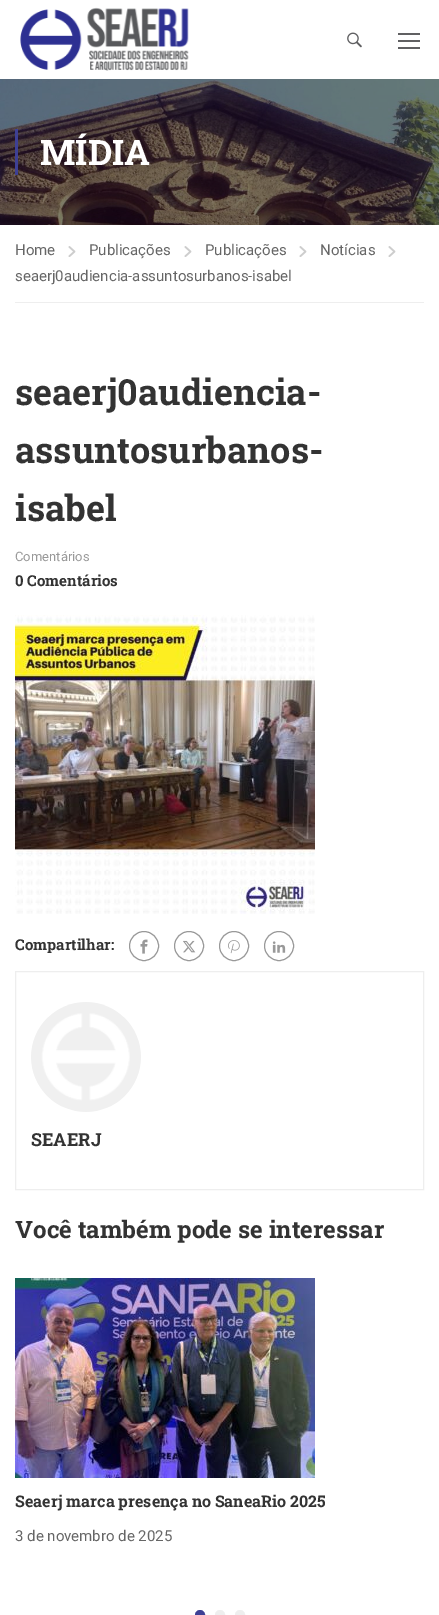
%!PS-Adobe-3.0
%%BoundingBox: 0 0 439 1615
%%LanguageLevel: 3
%%Pages: 1
%%EndComments
%%BeginProlog
/drawimage { 5 dict begin { /h /w /y /x /name } { exch def } forall
  gsave x y translate w h scale
  w h 8 [w 0 0 h 0 0] name (r) file false 3 colorimage grestore end } def
%%EndProlog
%%BeginSetup
<< /PageSize [439 1615] >> setpagedevice
%%EndSetup
%%Page: 1 1
0 1615 translate 1 -1 scale
4 setmiterlimit
1 setgray
0 0 439 1615 rectfill
(images/1.raw) 20 7 169 64 drawimage
(images/2.raw) 347 32 15 16 drawimage
0.376 0.376 0.384 setrgbcolor
398 33 22 2 rectfill
398 40 22 2 rectfill
398 47 22 2 rectfill
(images/3.raw) 0 79 439 146 drawimage
0.243 0.251 0.584 setrgbcolor
15 129 3 46 rectfill
0.933 setgray
15 302 409 1 rectfill
(images/4.raw) 68 246 8 11 drawimage
(images/4.raw) 184 246 8 11 drawimage
(images/4.raw) 299 246 8 11 drawimage
(images/4.raw) 388 246 8 11 drawimage
(images/5.raw) 15 615 300 299 drawimage
0.6 setgray
newpath 144 946 14.5 0 360 arc closepath stroke
(images/6.raw) 140 939 8 15 drawimage
newpath 189 946 14.5 0 360 arc closepath stroke
(images/7.raw) 183 940 13 13 drawimage
newpath 234 946 14.5 0 360 arc closepath stroke
(images/8.raw) 228 940 12 14 drawimage
newpath 279 946 14.5 0 360 arc closepath stroke
(images/9.raw) 272 941 14 12 drawimage
0.933 setgray
15.5 971.5 408 218 rectstroke
(images/10.raw) 31 1002 110 110 drawimage
(images/11.raw) 15 1278 300 200 drawimage
0.243 0.251 0.584 setrgbcolor
newpath 200 1615 4 0 360 arc closepath gsave fill grestore
2 setlinewidth
stroke
0.933 setgray
newpath 220 1615 4 0 360 arc closepath gsave fill grestore
stroke
newpath 240 1615 4 0 360 arc closepath gsave fill grestore
stroke
/RobotoSlab-Bold [35 0 0 -35 0 0] selectfont
1 setgray
40 165 moveto (MÍDIA) show
/Roboto-Regular [15 0 0 -15 0 0] selectfont
0.4 setgray
15 255 moveto (Home) show
89 255 moveto (Publicações) show
205 255 moveto (Publicações) show
320 255 moveto (Notícias) show
15 281 moveto (seaerj0audiencia-assuntosurbanos-isabel) show
/RobotoSlab-Bold [36 0 0 -36 0 0] selectfont
0.2 setgray
15 405 moveto (seaerj0audiencia-) show
15 463 moveto (assuntosurbanos-) show
15 521 moveto (isabel) show
/Roboto-Regular [13 0 0 -13 0 0] selectfont
0.6 setgray
15 561 moveto (Comentários) show
/RobotoSlab-Bold [15 0 0 -15 0 0] selectfont
0.2 setgray
15 586 moveto (0 Comentários) show
15 950 moveto (Compartilhar:) show
/RobotoSlab-Bold [18 0 0 -18 0 0] selectfont
31 1146 moveto (SEAERJ) show
/RobotoSlab-Bold [24 0 0 -24 0 0] selectfont
15 1238 moveto (Você também pode se interessar) show
/RobotoSlab-Bold [16 0 0 -16 0 0] selectfont
15 1507 moveto (Seaerj marca presença no SaneaRio 2025) show
/Roboto-Regular [15 0 0 -15 0 0] selectfont
0.4 setgray
15 1541 moveto (3 de novembro de 2025) show
showpage
%%EOF
